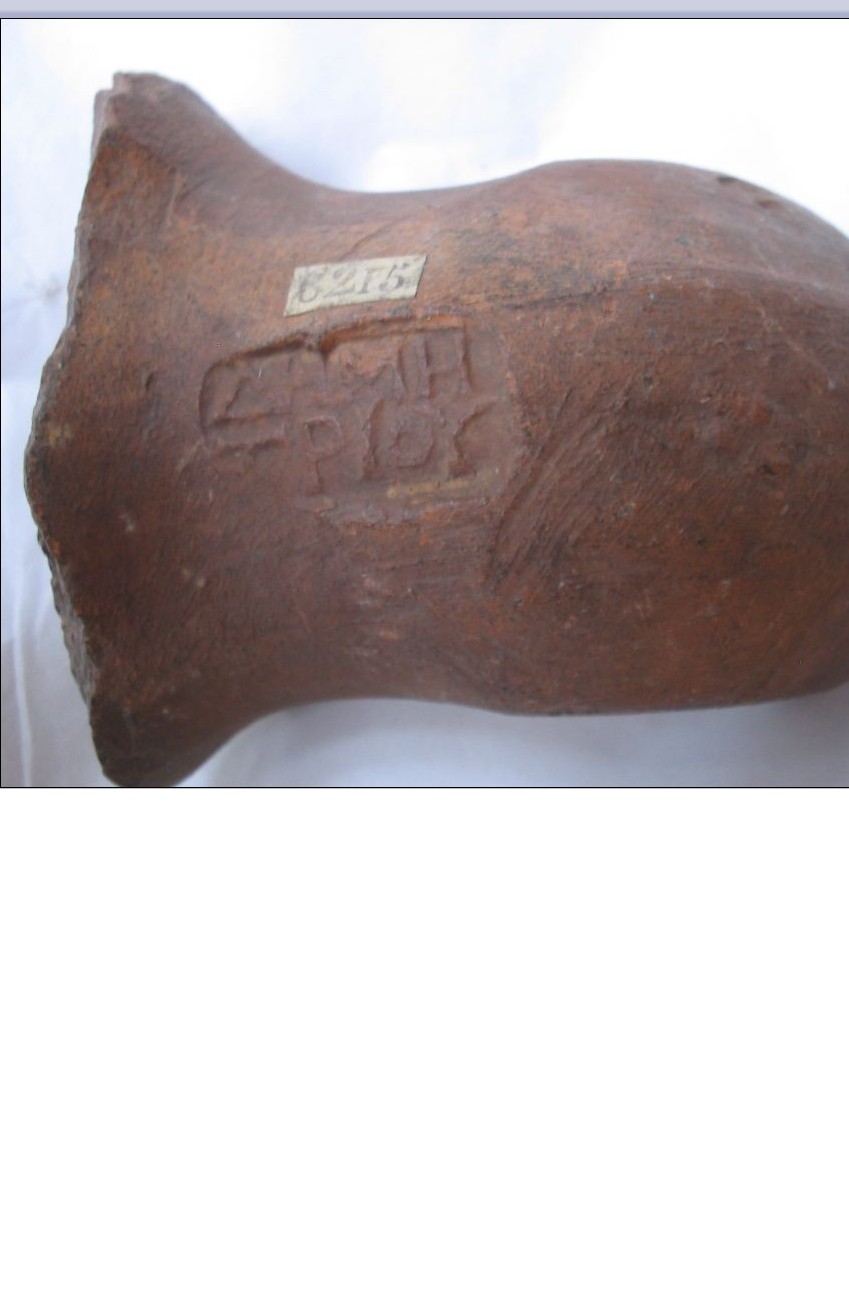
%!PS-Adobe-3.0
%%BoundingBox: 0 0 849 1297
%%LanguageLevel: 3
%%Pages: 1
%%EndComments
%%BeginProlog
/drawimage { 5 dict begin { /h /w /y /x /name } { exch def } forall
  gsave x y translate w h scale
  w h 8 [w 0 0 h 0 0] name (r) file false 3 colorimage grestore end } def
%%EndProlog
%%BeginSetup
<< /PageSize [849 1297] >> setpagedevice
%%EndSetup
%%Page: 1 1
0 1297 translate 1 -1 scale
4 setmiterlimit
1 setgray
0 0 849 1297 rectfill
(images/1.raw) 0 0 334 18 drawimage
(images/2.raw) 334 0 515 18 drawimage
0 setgray
0.5 18.5 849 769 rectstroke
(images/3.raw) 1 19 848 768 drawimage
showpage
%%EOF
